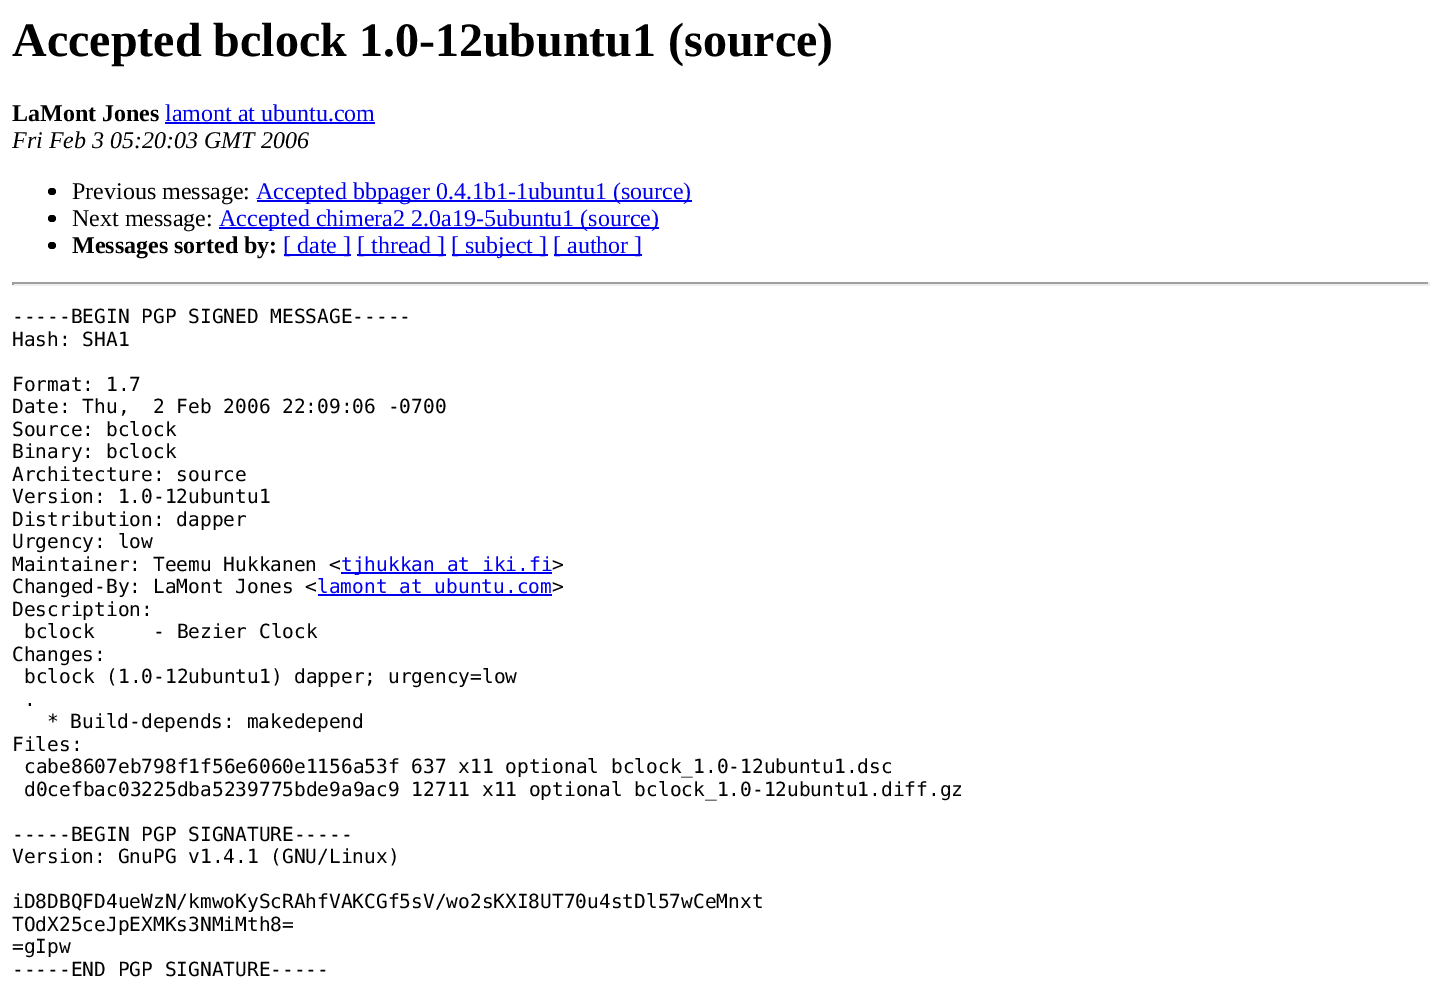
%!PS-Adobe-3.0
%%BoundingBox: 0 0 1441 994
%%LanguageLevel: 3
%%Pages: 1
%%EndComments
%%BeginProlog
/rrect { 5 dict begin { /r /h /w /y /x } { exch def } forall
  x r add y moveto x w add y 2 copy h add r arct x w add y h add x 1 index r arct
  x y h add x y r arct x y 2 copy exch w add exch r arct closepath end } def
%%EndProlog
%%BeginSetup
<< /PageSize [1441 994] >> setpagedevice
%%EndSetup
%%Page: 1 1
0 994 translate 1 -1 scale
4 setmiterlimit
1 setgray
0 0 1441 994 rectfill
0 0 0.933 setrgbcolor
165 122 210 2 rectfill
0 setgray
48 188 8 7 3.5 rrect fill
0 0 0.933 setrgbcolor
257 200 435 2 rectfill
0 setgray
48 215 8 7 3.5 rrect fill
0 0 0.933 setrgbcolor
219 227 440 2 rectfill
0 setgray
48 242 8 7 3.5 rrect fill
0 0 0.933 setrgbcolor
284 254 67 2 rectfill
357 254 89 2 rectfill
452 254 96 2 rectfill
554 254 88 2 rectfill
0.624 setgray
12 282 1418 2 rectfill
0.933 setgray
1428 282 2 3 rectfill
12 284 1418 2 rectfill
0.624 setgray
12 282 2 3 rectfill
0 0 0.933 setrgbcolor
341 572 211 2 rectfill
318 594 234 2 rectfill
/LiberationSerif-Bold [48 0 0 -48 0 0] selectfont
0 setgray
12 56 moveto (Accepted bclock 1.0-12ubuntu1 \(source\)) show
/LiberationSerif-Bold [24 0 0 -24 0 0] selectfont
12 121 moveto (LaMont Jones) show
/LiberationSerif-Regular [24 0 0 -24 0 0] selectfont
0 0 0.933 setrgbcolor
165 121 moveto (lamont at ubuntu.com) show
/LiberationSerif-Italic [24 0 0 -24 0 0] selectfont
0 setgray
12 148 moveto (Fri Feb 3 05:20:03 GMT 2006) show
/LiberationSerif-Regular [24 0 0 -24 0 0] selectfont
72 199 moveto (Previous message:) show
0 0 0.933 setrgbcolor
256 199 moveto (Accepted bbpager 0.4.1b1-1ubuntu1 \(source\)) show
0 setgray
72 226 moveto (Next message:) show
0 0 0.933 setrgbcolor
219 226 moveto (Accepted chimera2 2.0a19-5ubuntu1 \(source\)) show
/LiberationSerif-Bold [24 0 0 -24 0 0] selectfont
0 setgray
72 253 moveto (Messages sorted by:) show
/LiberationSerif-Regular [24 0 0 -24 0 0] selectfont
0 0 0.933 setrgbcolor
283 253 moveto ([ date ]) show
357 253 moveto ([ thread ]) show
451 253 moveto ([ subject ]) show
553 253 moveto ([ author ]) show
/DejaVuSansMono-Regular [19.5 0 0 -19.5 0 0] selectfont
0 setgray
12 323 moveto (-----BEGIN PGP SIGNED MESSAGE-----) show
12 346 moveto (Hash: SHA1) show
12 391 moveto (Format: 1.7) show
12 413 moveto (Date: Thu,  2 Feb 2006 22:09:06 -0700) show
12 436 moveto (Source: bclock) show
12 458 moveto (Binary: bclock) show
12 481 moveto (Architecture: source) show
12 503 moveto (Version: 1.0-12ubuntu1) show
12 526 moveto (Distribution: dapper) show
12 548 moveto (Urgency: low) show
12 571 moveto (Maintainer: Teemu Hukkanen <) show
0 0 0.933 setrgbcolor
341 571 moveto (tjhukkan at iki.fi) show
0 setgray
552 571 moveto (>) show
12 593 moveto (Changed-By: LaMont Jones <) show
0 0 0.933 setrgbcolor
317 593 moveto (lamont at ubuntu.com) show
0 setgray
552 593 moveto (>) show
12 616 moveto (Description:) show
24 638 moveto (bclock     - Bezier Clock) show
12 661 moveto (Changes:) show
24 683 moveto (bclock \(1.0-12ubuntu1\) dapper; urgency=low) show
24 706 moveto (.) show
47 728 moveto (* Build-depends: makedepend) show
12 751 moveto (Files:) show
24 773 moveto (cabe8607eb798f1f56e6060e1156a53f 637 x11 optional bclock_1.0-12ubuntu1.dsc) show
24 796 moveto (d0cefbac03225dba5239775bde9a9ac9 12711 x11 optional bclock_1.0-12ubuntu1.diff.gz) show
12 841 moveto (-----BEGIN PGP SIGNATURE-----) show
12 863 moveto (Version: GnuPG v1.4.1 \(GNU/Linux\)) show
12 908 moveto (iD8DBQFD4ueWzN/kmwoKyScRAhfVAKCGf5sV/wo2sKXI8UT70u4stDl57wCeMnxt) show
12 931 moveto (TOdX25ceJpEXMKs3NMiMth8=) show
12 953 moveto (=gIpw) show
12 976 moveto (-----END PGP SIGNATURE-----) show
showpage
%%EOF
